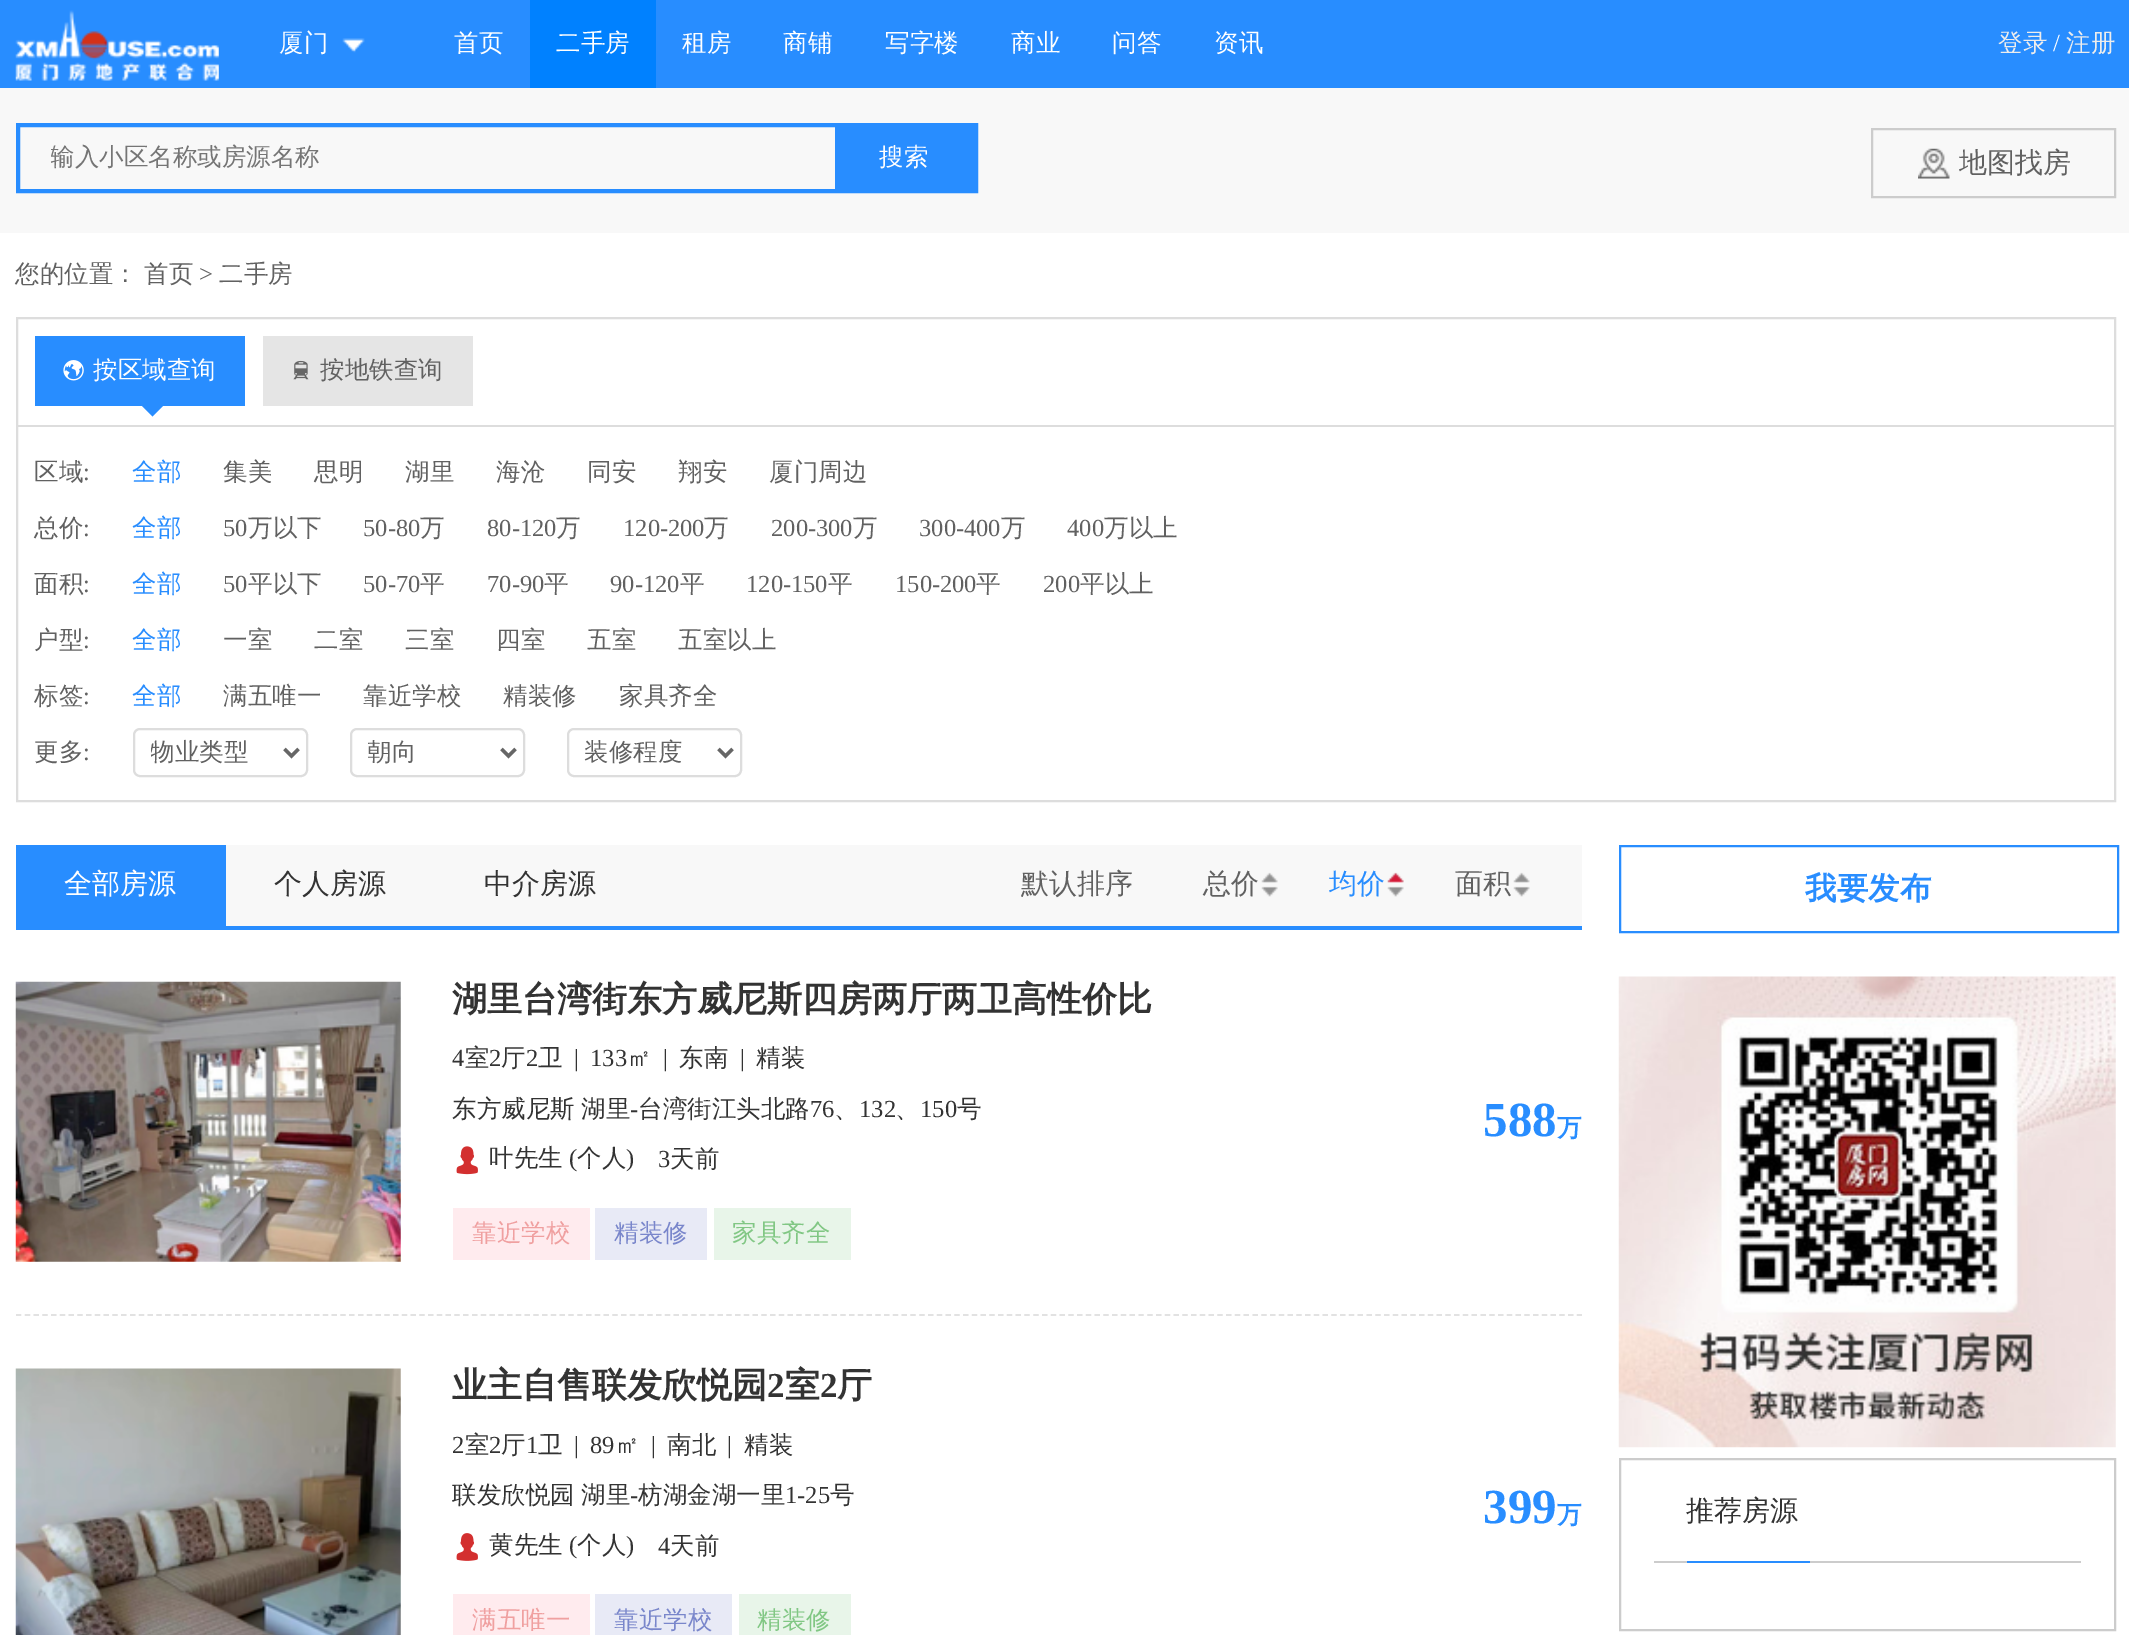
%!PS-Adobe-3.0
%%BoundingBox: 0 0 2129 1635
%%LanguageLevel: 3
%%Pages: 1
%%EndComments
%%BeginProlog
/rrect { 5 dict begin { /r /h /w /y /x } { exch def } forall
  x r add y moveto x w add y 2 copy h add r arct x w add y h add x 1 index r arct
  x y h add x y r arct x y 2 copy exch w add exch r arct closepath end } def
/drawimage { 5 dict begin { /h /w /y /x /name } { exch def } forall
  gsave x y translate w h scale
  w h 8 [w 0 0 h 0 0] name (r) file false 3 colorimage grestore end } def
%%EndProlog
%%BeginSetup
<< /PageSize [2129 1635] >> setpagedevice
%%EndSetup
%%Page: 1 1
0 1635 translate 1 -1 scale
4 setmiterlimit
1 setgray
0 0 2129 1635 rectfill
0.157 0.553 1 setrgbcolor
0 0 2129 88 rectfill
(images/1.raw) 15 10 204 71 drawimage
(images/2.raw) 342 38 23 15 drawimage
0 0.506 1 setrgbcolor
530 0 126 88 rectfill
0.973 setgray
0 88 2129 145 rectfill
0.157 0.553 1 setrgbcolor
4 setlinewidth
18 125 958 66 rectstroke
835 127 139 62 rectfill
(images/3.raw) 1918 148 32 31 drawimage
0.8 setgray
2 setlinewidth
1872 129 243 68 rectstroke
0.867 setgray
17 318 2098 483 rectstroke
18 425 2096 2 rectfill
0.157 0.553 1 setrgbcolor
35 336 210 70 rectfill
(images/4.raw) 63 360 21 21 drawimage
newpath 138.5 402.5 moveto 166.5 402.5 lineto 152.5 416.5 lineto closepath fill
0.898 setgray
263 336 210 70 rectfill
(images/5.raw) 293 360 16 20 drawimage
0.867 setgray
134 729 173 47 6 rrect stroke
0.4 setgray
3.5 setlinewidth
newpath 284.5 749 moveto 291.5 756 lineto 298.5 749 lineto stroke
0.867 setgray
2 setlinewidth
351 729 173 47 6 rrect stroke
0.4 setgray
3.5 setlinewidth
newpath 501.5 749 moveto 508.5 756 lineto 515.5 749 lineto stroke
0.867 setgray
2 setlinewidth
568 729 173 47 6 rrect stroke
0.4 setgray
3.5 setlinewidth
newpath 718.5 749 moveto 725.5 756 lineto 732.5 749 lineto stroke
0.973 setgray
226 845 1356 81 rectfill
0.157 0.553 1 setrgbcolor
16 926 1566 4 rectfill
16 845 210 81 rectfill
(images/6.raw) 1261 872 17 25 drawimage
(images/7.raw) 1387 872 17 25 drawimage
(images/6.raw) 1513 872 17 25 drawimage
0.886 setgray
1.8 setlinewidth
[5.25 3.52] 0 setdash
newpath 16 1315 moveto 1582 1315 lineto stroke
(images/8.raw) 15 981 386 281 drawimage
(images/9.raw) 456 1146 22 29 drawimage
1 0.922 0.933 setrgbcolor
453 1208 137 52 rectfill
0.91 0.918 0.965 setrgbcolor
595 1208 112 52 rectfill
0.91 0.961 0.914 setrgbcolor
714 1208 137 52 rectfill
(images/10.raw) 15 1368 386 267 drawimage
(images/11.raw) 456 1533 22 28 drawimage
1 0.922 0.933 setrgbcolor
453 1594 137 41 rectfill
0.91 0.918 0.965 setrgbcolor
595 1594 137 41 rectfill
0.91 0.961 0.914 setrgbcolor
739 1594 112 41 rectfill
0.157 0.553 1 setrgbcolor
2 setlinewidth
[] 0 setdash
1620 846 498 86 rectstroke
(images/12.raw) 1618 976 498 472 drawimage
0.8 setgray
1620 1459 495 171 rectstroke
1654 1561 427 2 rectfill
0.157 0.553 1 setrgbcolor
1687 1561 123 2 rectfill
/WenQuanYiZenHei-Medium [24.5 0 0 -24.5 0 0] selectfont
1 setgray
279 51 moveto (厦门) show
454 51 moveto (首页) show
556 51 moveto (二手房) show
682 51 moveto (租房) show
783 51 moveto (商铺) show
885 51 moveto (写字楼) show
1011 51 moveto (商业) show
1112 51 moveto (问答) show
1214 51 moveto (资讯) show
0.929 setgray
1998 51 moveto (登录) show
/LiberationSerif-Regular [24.5 0 0 -24.5 0 0] selectfont
1 setgray
2053 51 moveto (/) show
/WenQuanYiZenHei-Medium [24.5 0 0 -24.5 0 0] selectfont
0.929 setgray
2066 51 moveto (注册) show
gsave
51 142 752 31 rectclip
0.459 setgray
50 165 moveto (输入小区名称或房源名称) show
grestore
1 setgray
879 165 moveto (搜索) show
/WenQuanYiZenHei-Medium [28 0 0 -28 0 0] selectfont
0.38 setgray
1959 172 moveto (地图找房) show
/WenQuanYiZenHei-Medium [24.5 0 0 -24.5 0 0] selectfont
15 282 moveto (您的位置：) show
144 282 moveto (首页) show
/LiberationSerif-Regular [24.5 0 0 -24.5 0 0] selectfont
199 282 moveto (>) show
/WenQuanYiZenHei-Medium [24.5 0 0 -24.5 0 0] selectfont
219 282 moveto (二手房) show
1 setgray
93 378 moveto (按区域查询) show
0.38 setgray
320 378 moveto (按地铁查询) show
34 480 moveto (区域) show
/LiberationSerif-Regular [24.5 0 0 -24.5 0 0] selectfont
83 480 moveto (:) show
/WenQuanYiZenHei-Medium [24.5 0 0 -24.5 0 0] selectfont
0.157 0.553 1 setrgbcolor
132 480 moveto (全部) show
0.38 setgray
223 480 moveto (集美) show
314 480 moveto (思明) show
405 480 moveto (湖里) show
496 480 moveto (海沧) show
587 480 moveto (同安) show
678 480 moveto (翔安) show
769 480 moveto (厦门周边) show
34 536 moveto (总价) show
/LiberationSerif-Regular [24.5 0 0 -24.5 0 0] selectfont
83 536 moveto (:) show
/WenQuanYiZenHei-Medium [24.5 0 0 -24.5 0 0] selectfont
0.157 0.553 1 setrgbcolor
132 536 moveto (全部) show
/LiberationSerif-Regular [24.5 0 0 -24.5 0 0] selectfont
0.38 setgray
223 536 moveto (50) show
/WenQuanYiZenHei-Medium [24.5 0 0 -24.5 0 0] selectfont
248 536 moveto (万以下) show
/LiberationSerif-Regular [24.5 0 0 -24.5 0 0] selectfont
363 536 moveto (50-80) show
/WenQuanYiZenHei-Medium [24.5 0 0 -24.5 0 0] selectfont
420 536 moveto (万) show
/LiberationSerif-Regular [24.5 0 0 -24.5 0 0] selectfont
487 536 moveto (80-120) show
/WenQuanYiZenHei-Medium [24.5 0 0 -24.5 0 0] selectfont
556 536 moveto (万) show
/LiberationSerif-Regular [24.5 0 0 -24.5 0 0] selectfont
623 536 moveto (120-200) show
/WenQuanYiZenHei-Medium [24.5 0 0 -24.5 0 0] selectfont
704 536 moveto (万) show
/LiberationSerif-Regular [24.5 0 0 -24.5 0 0] selectfont
771 536 moveto (200-300) show
/WenQuanYiZenHei-Medium [24.5 0 0 -24.5 0 0] selectfont
853 536 moveto (万) show
/LiberationSerif-Regular [24.5 0 0 -24.5 0 0] selectfont
919 536 moveto (300-400) show
/WenQuanYiZenHei-Medium [24.5 0 0 -24.5 0 0] selectfont
1001 536 moveto (万) show
/LiberationSerif-Regular [24.5 0 0 -24.5 0 0] selectfont
1067 536 moveto (400) show
/WenQuanYiZenHei-Medium [24.5 0 0 -24.5 0 0] selectfont
1104 536 moveto (万以上) show
34 592 moveto (面积) show
/LiberationSerif-Regular [24.5 0 0 -24.5 0 0] selectfont
83 592 moveto (:) show
/WenQuanYiZenHei-Medium [24.5 0 0 -24.5 0 0] selectfont
0.157 0.553 1 setrgbcolor
132 592 moveto (全部) show
/LiberationSerif-Regular [24.5 0 0 -24.5 0 0] selectfont
0.38 setgray
223 592 moveto (50) show
/WenQuanYiZenHei-Medium [24.5 0 0 -24.5 0 0] selectfont
248 592 moveto (平以下) show
/LiberationSerif-Regular [24.5 0 0 -24.5 0 0] selectfont
363 592 moveto (50-70) show
/WenQuanYiZenHei-Medium [24.5 0 0 -24.5 0 0] selectfont
420 592 moveto (平) show
/LiberationSerif-Regular [24.5 0 0 -24.5 0 0] selectfont
487 592 moveto (70-90) show
/WenQuanYiZenHei-Medium [24.5 0 0 -24.5 0 0] selectfont
544 592 moveto (平) show
/LiberationSerif-Regular [24.5 0 0 -24.5 0 0] selectfont
610 592 moveto (90-120) show
/WenQuanYiZenHei-Medium [24.5 0 0 -24.5 0 0] selectfont
680 592 moveto (平) show
/LiberationSerif-Regular [24.5 0 0 -24.5 0 0] selectfont
746 592 moveto (120-150) show
/WenQuanYiZenHei-Medium [24.5 0 0 -24.5 0 0] selectfont
828 592 moveto (平) show
/LiberationSerif-Regular [24.5 0 0 -24.5 0 0] selectfont
895 592 moveto (150-200) show
/WenQuanYiZenHei-Medium [24.5 0 0 -24.5 0 0] selectfont
976 592 moveto (平) show
/LiberationSerif-Regular [24.5 0 0 -24.5 0 0] selectfont
1043 592 moveto (200) show
/WenQuanYiZenHei-Medium [24.5 0 0 -24.5 0 0] selectfont
1080 592 moveto (平以上) show
34 648 moveto (户型) show
/LiberationSerif-Regular [24.5 0 0 -24.5 0 0] selectfont
83 648 moveto (:) show
/WenQuanYiZenHei-Medium [24.5 0 0 -24.5 0 0] selectfont
0.157 0.553 1 setrgbcolor
132 648 moveto (全部) show
0.38 setgray
223 648 moveto (一室) show
314 648 moveto (二室) show
405 648 moveto (三室) show
496 648 moveto (四室) show
587 648 moveto (五室) show
678 648 moveto (五室以上) show
34 704 moveto (标签) show
/LiberationSerif-Regular [24.5 0 0 -24.5 0 0] selectfont
83 704 moveto (:) show
/WenQuanYiZenHei-Medium [24.5 0 0 -24.5 0 0] selectfont
0.157 0.553 1 setrgbcolor
132 704 moveto (全部) show
0.38 setgray
223 704 moveto (满五唯一) show
363 704 moveto (靠近学校) show
503 704 moveto (精装修) show
619 704 moveto (家具齐全) show
34 760 moveto (更多) show
/LiberationSerif-Regular [24.5 0 0 -24.5 0 0] selectfont
83 760 moveto (:) show
gsave
151 739 127 29 rectclip
/WenQuanYiZenHei-Medium [24.5 0 0 -24.5 0 0] selectfont
150 760 moveto (物业类型) show
grestore
gsave
368 739 127 29 rectclip
/WenQuanYiZenHei-Medium [24.5 0 0 -24.5 0 0] selectfont
367 760 moveto (朝向) show
grestore
/WenQuanYiZenHei-Medium [24.5 0 0 -24.5 0 0] selectfont
584 760 moveto (装修程度) show
/WenQuanYiZenHei-Medium [28 0 0 -28 0 0] selectfont
1 setgray
64 893 moveto (全部房源) show
0.2 setgray
274 893 moveto (个人房源) show
484 893 moveto (中介房源) show
0.38 setgray
1021 893 moveto (默认排序) show
1203 893 moveto (总价) show
0.157 0.553 1 setrgbcolor
1329 893 moveto (均价) show
0.38 setgray
1455 893 moveto (面积) show
/WenQuanYiZenHei-Bold [35 0 0 -35 0 0] selectfont
0.2 setgray
452 1011 moveto (湖里台湾街东方威尼斯四房两厅两卫高性价比) show
/LiberationSerif-Regular [24.5 0 0 -24.5 0 0] selectfont
452 1066 moveto (4) show
/WenQuanYiZenHei-Medium [24.5 0 0 -24.5 0 0] selectfont
465 1066 moveto (室) show
/LiberationSerif-Regular [24.5 0 0 -24.5 0 0] selectfont
489 1066 moveto (2) show
/WenQuanYiZenHei-Medium [24.5 0 0 -24.5 0 0] selectfont
501 1066 moveto (厅) show
/LiberationSerif-Regular [24.5 0 0 -24.5 0 0] selectfont
526 1066 moveto (2) show
/WenQuanYiZenHei-Medium [24.5 0 0 -24.5 0 0] selectfont
538 1066 moveto (卫) show
/LiberationSerif-Regular [24.5 0 0 -24.5 0 0] selectfont
574 1066 moveto (|) show
590 1066 moveto (133) show
/WenQuanYiZenHei-Medium [24.5 0 0 -24.5 0 0] selectfont
627 1066 moveto (㎡) show
/LiberationSerif-Regular [24.5 0 0 -24.5 0 0] selectfont
663 1066 moveto (|) show
/WenQuanYiZenHei-Medium [24.5 0 0 -24.5 0 0] selectfont
679 1066 moveto (东南) show
/LiberationSerif-Regular [24.5 0 0 -24.5 0 0] selectfont
740 1066 moveto (|) show
/WenQuanYiZenHei-Medium [24.5 0 0 -24.5 0 0] selectfont
756 1066 moveto (精装) show
452 1117 moveto (东方威尼斯) show
581 1117 moveto (湖里) show
/LiberationSerif-Regular [24.5 0 0 -24.5 0 0] selectfont
630 1117 moveto (-) show
/WenQuanYiZenHei-Medium [24.5 0 0 -24.5 0 0] selectfont
638 1117 moveto (台湾街江头北路) show
/LiberationSerif-Regular [24.5 0 0 -24.5 0 0] selectfont
810 1117 moveto (76) show
859 1117 moveto (132) show
920 1117 moveto (150) show
/WenQuanYiZenHei-Medium [24.5 0 0 -24.5 0 0] selectfont
957 1117 moveto (号) show
834 1117 moveto (、) show
895 1117 moveto (、) show
/LiberationSerif-Bold [49 0 0 -49 0 0] selectfont
0.157 0.553 1 setrgbcolor
1483 1136 moveto (588) show
/WenQuanYiZenHei-Bold [24.5 0 0 -24.5 0 0] selectfont
1557 1136 moveto (万) show
/WenQuanYiZenHei-Medium [24.5 0 0 -24.5 0 0] selectfont
0.2 setgray
489 1166 moveto (叶先生) show
/LiberationSerif-Regular [24.5 0 0 -24.5 0 0] selectfont
569 1166 moveto (\() show
/WenQuanYiZenHei-Medium [24.5 0 0 -24.5 0 0] selectfont
577 1166 moveto (个人) show
/LiberationSerif-Regular [24.5 0 0 -24.5 0 0] selectfont
626 1166 moveto (\)) show
658 1167 moveto (3) show
/WenQuanYiZenHei-Medium [24.5 0 0 -24.5 0 0] selectfont
670 1167 moveto (天前) show
0.941 0.627 0.627 setrgbcolor
472 1241 moveto (靠近学校) show
0.475 0.525 0.796 setrgbcolor
614 1241 moveto (精装修) show
0.506 0.78 0.518 setrgbcolor
732 1241 moveto (家具齐全) show
/WenQuanYiZenHei-Bold [35 0 0 -35 0 0] selectfont
0.2 setgray
452 1397 moveto (业主自售联发欣悦园) show
/LiberationSerif-Bold [35 0 0 -35 0 0] selectfont
767 1397 moveto (2) show
/WenQuanYiZenHei-Bold [35 0 0 -35 0 0] selectfont
785 1397 moveto (室) show
/LiberationSerif-Bold [35 0 0 -35 0 0] selectfont
820 1397 moveto (2) show
/WenQuanYiZenHei-Bold [35 0 0 -35 0 0] selectfont
837 1397 moveto (厅) show
/LiberationSerif-Regular [24.5 0 0 -24.5 0 0] selectfont
452 1453 moveto (2) show
/WenQuanYiZenHei-Medium [24.5 0 0 -24.5 0 0] selectfont
465 1453 moveto (室) show
/LiberationSerif-Regular [24.5 0 0 -24.5 0 0] selectfont
489 1453 moveto (2) show
/WenQuanYiZenHei-Medium [24.5 0 0 -24.5 0 0] selectfont
501 1453 moveto (厅) show
/LiberationSerif-Regular [24.5 0 0 -24.5 0 0] selectfont
526 1453 moveto (1) show
/WenQuanYiZenHei-Medium [24.5 0 0 -24.5 0 0] selectfont
538 1453 moveto (卫) show
/LiberationSerif-Regular [24.5 0 0 -24.5 0 0] selectfont
574 1453 moveto (|) show
590 1453 moveto (89) show
/WenQuanYiZenHei-Medium [24.5 0 0 -24.5 0 0] selectfont
615 1453 moveto (㎡) show
/LiberationSerif-Regular [24.5 0 0 -24.5 0 0] selectfont
651 1453 moveto (|) show
/WenQuanYiZenHei-Medium [24.5 0 0 -24.5 0 0] selectfont
667 1453 moveto (南北) show
/LiberationSerif-Regular [24.5 0 0 -24.5 0 0] selectfont
727 1453 moveto (|) show
/WenQuanYiZenHei-Medium [24.5 0 0 -24.5 0 0] selectfont
744 1453 moveto (精装) show
452 1503 moveto (联发欣悦园) show
581 1503 moveto (湖里) show
/LiberationSerif-Regular [24.5 0 0 -24.5 0 0] selectfont
630 1503 moveto (-) show
/WenQuanYiZenHei-Medium [24.5 0 0 -24.5 0 0] selectfont
638 1503 moveto (枋湖金湖一里) show
/LiberationSerif-Regular [24.5 0 0 -24.5 0 0] selectfont
785 1503 moveto (1-25) show
/WenQuanYiZenHei-Medium [24.5 0 0 -24.5 0 0] selectfont
830 1503 moveto (号) show
/LiberationSerif-Bold [49 0 0 -49 0 0] selectfont
0.157 0.553 1 setrgbcolor
1483 1523 moveto (399) show
/WenQuanYiZenHei-Bold [24.5 0 0 -24.5 0 0] selectfont
1557 1523 moveto (万) show
/WenQuanYiZenHei-Medium [24.5 0 0 -24.5 0 0] selectfont
0.2 setgray
489 1553 moveto (黄先生) show
/LiberationSerif-Regular [24.5 0 0 -24.5 0 0] selectfont
569 1553 moveto (\() show
/WenQuanYiZenHei-Medium [24.5 0 0 -24.5 0 0] selectfont
577 1553 moveto (个人) show
/LiberationSerif-Regular [24.5 0 0 -24.5 0 0] selectfont
626 1553 moveto (\)) show
658 1554 moveto (4) show
/WenQuanYiZenHei-Medium [24.5 0 0 -24.5 0 0] selectfont
670 1554 moveto (天前) show
0.941 0.627 0.627 setrgbcolor
472 1628 moveto (满五唯一) show
0.475 0.525 0.796 setrgbcolor
614 1628 moveto (靠近学校) show
0.506 0.78 0.518 setrgbcolor
757 1628 moveto (精装修) show
/WenQuanYiZenHei-Bold [31.5 0 0 -31.5 0 0] selectfont
0.157 0.553 1 setrgbcolor
1805 899 moveto (我要发布) show
/WenQuanYiZenHei-Medium [28 0 0 -28 0 0] selectfont
0.2 setgray
1686 1520 moveto (推荐房源) show
showpage
%%EOF
